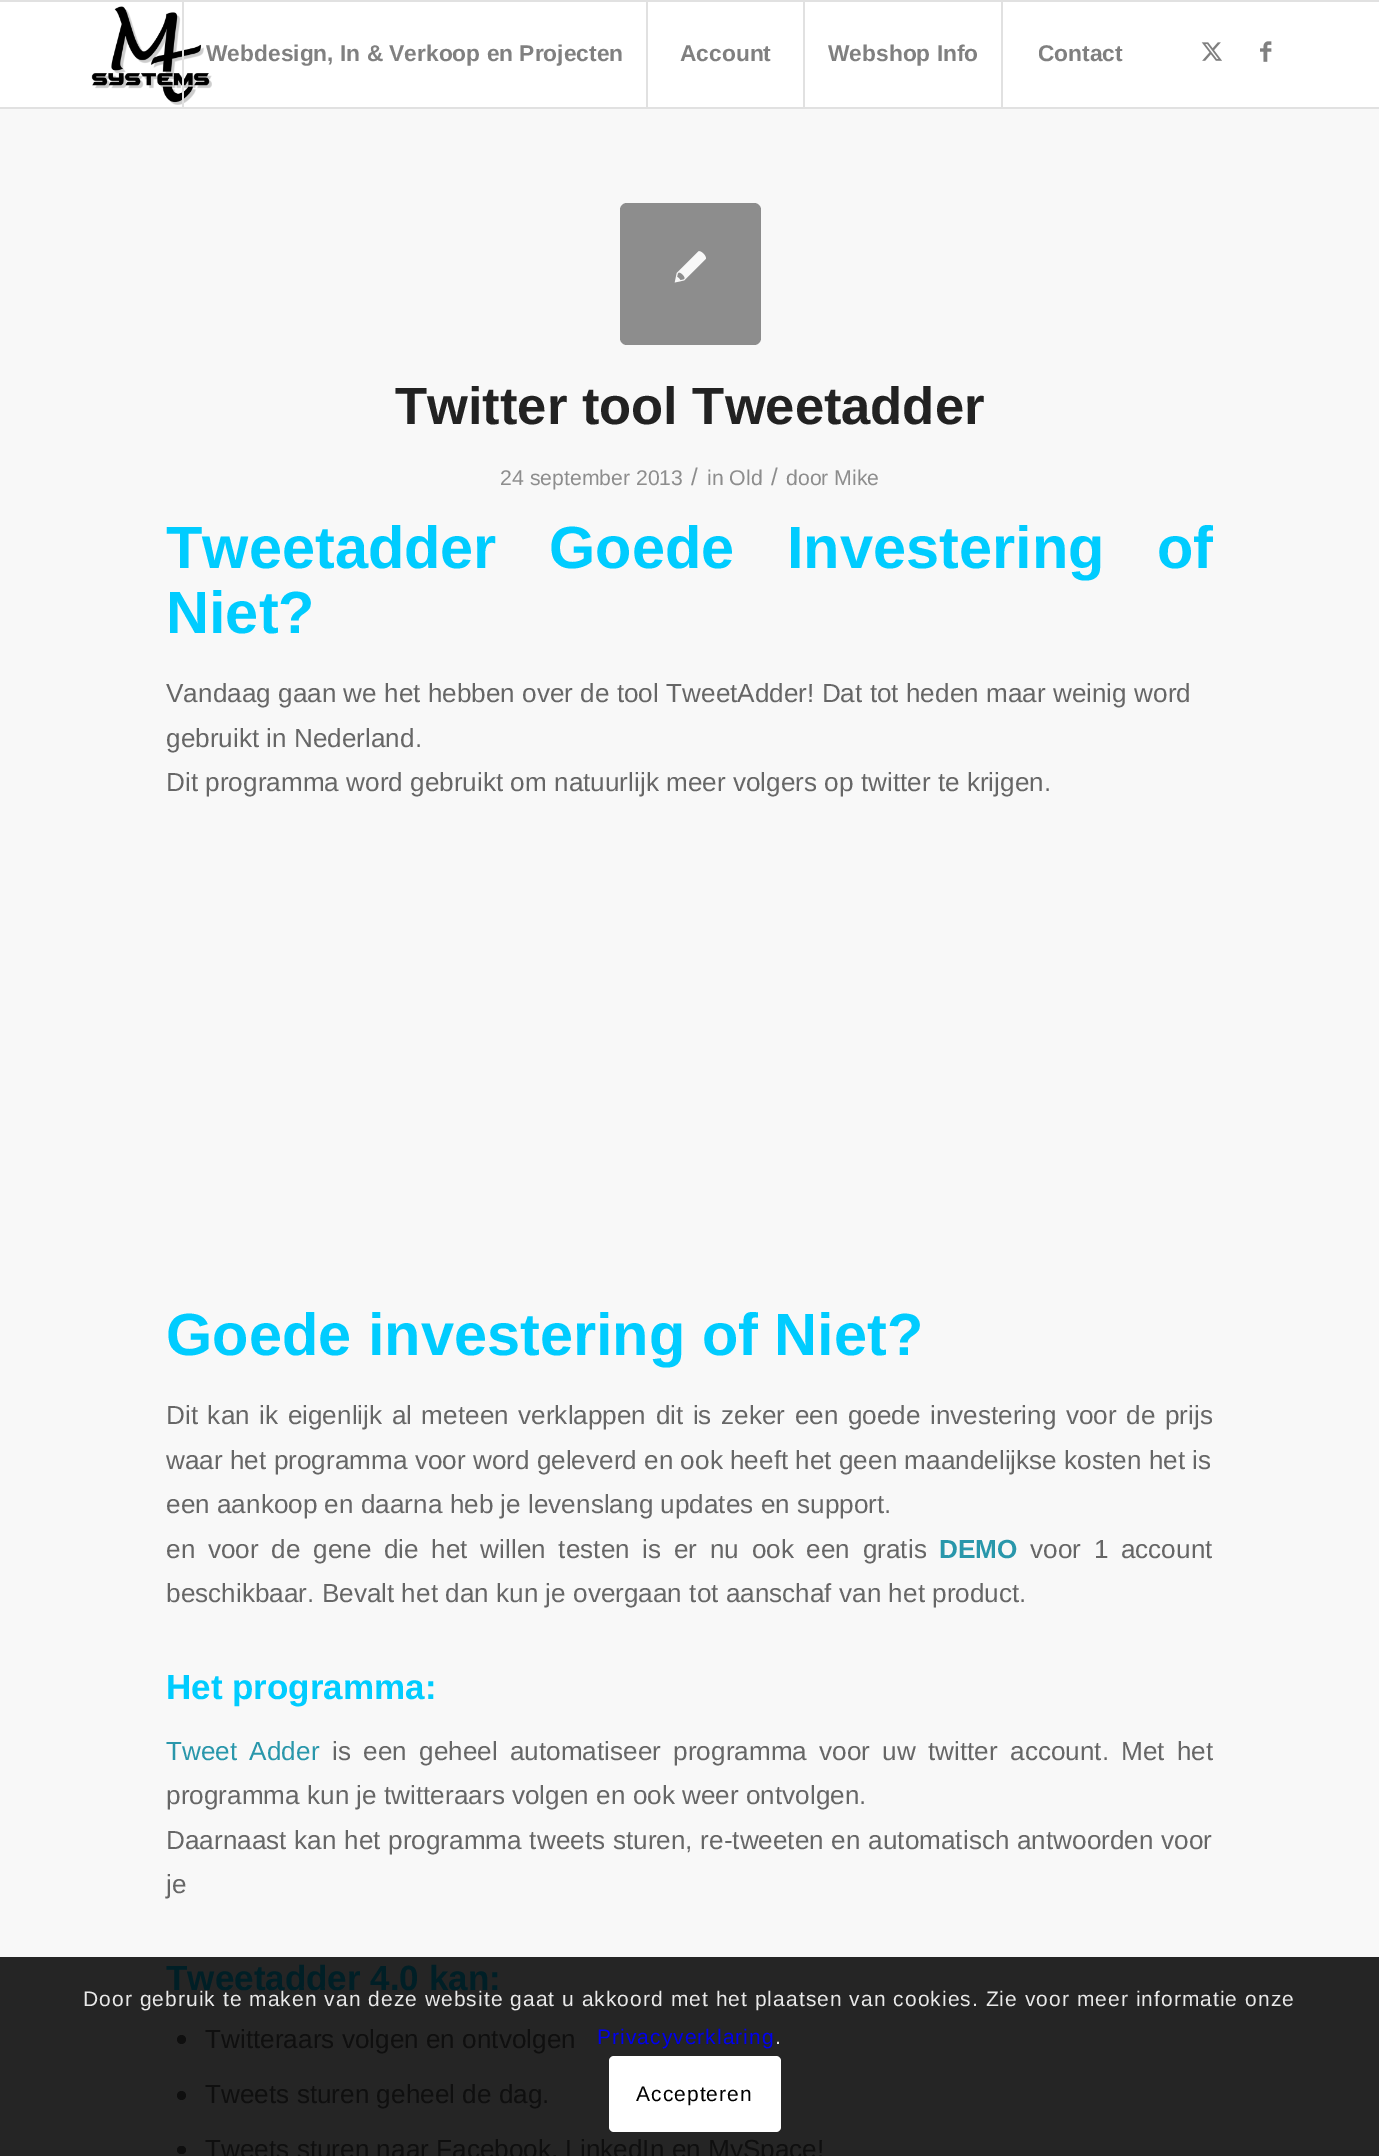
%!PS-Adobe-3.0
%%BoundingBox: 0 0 1379 2156
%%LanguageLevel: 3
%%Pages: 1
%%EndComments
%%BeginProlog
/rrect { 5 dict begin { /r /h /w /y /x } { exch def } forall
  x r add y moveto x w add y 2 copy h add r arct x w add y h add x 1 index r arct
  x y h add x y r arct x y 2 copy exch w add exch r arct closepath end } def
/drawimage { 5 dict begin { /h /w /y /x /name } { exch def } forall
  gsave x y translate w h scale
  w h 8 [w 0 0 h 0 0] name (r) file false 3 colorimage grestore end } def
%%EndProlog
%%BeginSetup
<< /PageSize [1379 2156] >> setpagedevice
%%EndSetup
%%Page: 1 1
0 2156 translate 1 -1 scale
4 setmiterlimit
0.973 setgray
0 0 1379 2156 rectfill
1 setgray
0 2 1379 105 rectfill
0.882 setgray
0 0 1379 2 rectfill
0 107 1379 2 rectfill
(images/1.raw) 91 6 121 99 drawimage
182 2 2 105 rectfill
646 2 2 105 rectfill
803 2 2 105 rectfill
1001 2 2 105 rectfill
(images/2.raw) 1201 42 21 19 drawimage
(images/3.raw) 1260 41 12 21 drawimage
0.145 setgray
0 1957 1379 199 rectfill
0.553 setgray
620 203 141 142 7 rrect fill
(images/4.raw) 674 251 32 32 drawimage
0.059 setgray
newpath 181.5 2039.5 4.5 0 360 arc closepath fill
newpath 181.5 2095.5 4.5 0 360 arc closepath fill
177 2146 9 8 4 rrect fill
1 setgray
609 2056 172 76 5 rrect fill
/LiberationSans-Bold [22.75 0 0 -22.75 0 0] selectfont
0.502 setgray
206 61 moveto (Webdesign, In & Verkoop en Projecten) show
680 61 moveto (Account) show
828 61 moveto (Webshop Info) show
1038 61 moveto (Contact) show
/LiberationSans-Bold [52.5 0 0 -52.5 0 0] selectfont
0.133 setgray
395 424 moveto (Twitter tool Tweetadder) show
/LiberationSans-Regular [21.25 0 0 -21.25 0 0] selectfont
0.553 setgray
500 485 moveto (24 september 2013) show
/LiberationSans-Regular [24 0 0 -24 0 0] selectfont
691 485 moveto (/) show
/LiberationSans-Regular [21.25 0 0 -21.25 0 0] selectfont
707 485 moveto (in Old) show
/LiberationSans-Regular [24 0 0 -24 0 0] selectfont
771 485 moveto (/) show
/LiberationSans-Regular [21.25 0 0 -21.25 0 0] selectfont
786 485 moveto (door Mike) show
/LiberationSans-Bold [59.5 0 0 -59.5 0 0] selectfont
0 0.8 1 setrgbcolor
166 568 moveto 36 0 32 (Tweetadder Goede Investering of) widthshow
166 633 moveto (Niet?) show
/LiberationSans-Regular [26.15 0 0 -26.15 0 0] selectfont
0.4 setgray
166 702 moveto (Vandaag gaan we het hebben over de tool TweetAdder! Dat tot heden maar weinig word) show
166 747 moveto (gebruikt in Nederland.) show
166 791 moveto (Dit programma word gebruikt om natuurlijk meer volgers op twitter te krijgen.) show
/LiberationSans-Bold [59.5 0 0 -59.5 0 0] selectfont
0 0.8 1 setrgbcolor
166 1355 moveto (Goede investering of Niet?) show
/LiberationSans-Regular [26.15 0 0 -26.15 0 0] selectfont
0.4 setgray
166 1424 moveto 2.25 0 32 (Dit kan ik eigenlijk al meteen verklappen dit is zeker een goede investering voor de prijs) widthshow
166 1469 moveto (waar het programma voor word geleverd en ook heeft het geen maandelijkse kosten het is) show
166 1513 moveto (een aankoop en daarna heb je levenslang updates en support.) show
166 1558 moveto 5.4 0 32 (en voor de gene die het willen testen is er nu ook een gratis) widthshow
/LiberationSans-Bold [26.15 0 0 -26.15 0 0] selectfont
0.161 0.592 0.671 setrgbcolor
939 1558 moveto (DEMO) show
/LiberationSans-Regular [26.15 0 0 -26.15 0 0] selectfont
0.4 setgray
1030 1558 moveto 5.4 0 32 (voor 1 account) widthshow
166 1602 moveto (beschikbaar. Bevalt het dan kun je overgaan tot aanschaf van het product.) show
/LiberationSans-Bold [35 0 0 -35 0 0] selectfont
0 0.8 1 setrgbcolor
166 1699 moveto (Het programma:) show
/LiberationSans-Regular [26.15 0 0 -26.15 0 0] selectfont
0.161 0.592 0.671 setrgbcolor
166 1760 moveto 5 0 32 (Tweet Adder) widthshow
0.4 setgray
332 1760 moveto 5 0 32 (is een geheel automatiseer programma voor uw twitter account. Met het) widthshow
166 1804 moveto (programma kun je twitteraars volgen en ook weer ontvolgen.) show
166 1849 moveto 0.4 0 32 (Daarnaast kan het programma tweets sturen, re-tweeten en automatisch antwoorden voor) widthshow
166 1893 moveto (je) show
/LiberationSans-Bold [35 0 0 -35 0 0] selectfont
0 0.122 0.149 setrgbcolor
166 1990 moveto (Tweetadder 4.0 kan:) show
/LiberationSans-Regular [26.15 0 0 -26.15 0 0] selectfont
0.059 setgray
205 2048 moveto (Twitteraars volgen en ontvolgen) show
205 2103 moveto (Tweets sturen geheel de dag.) show
205 2158 moveto (Tweets sturen naar Facebook, LinkedIn en MySpace!) show
/LiberationSans-Regular [21 0 0 -21 0 0] selectfont
0.914 setgray
83 2006 moveto 1.05 0 (Door gebruik te maken van deze website gaat u akkoord met het plaatsen van cookies. Zie voor meer informatie onze) ashow
0 0 0.933 setrgbcolor
597 2044 moveto 1.05 0 (Privacyverklaring) ashow
0.914 setgray
775 2044 moveto 1.05 0 (.) ashow
0 setgray
636 2101 moveto 1.05 0 (Accepteren) ashow
showpage
%%EOF
